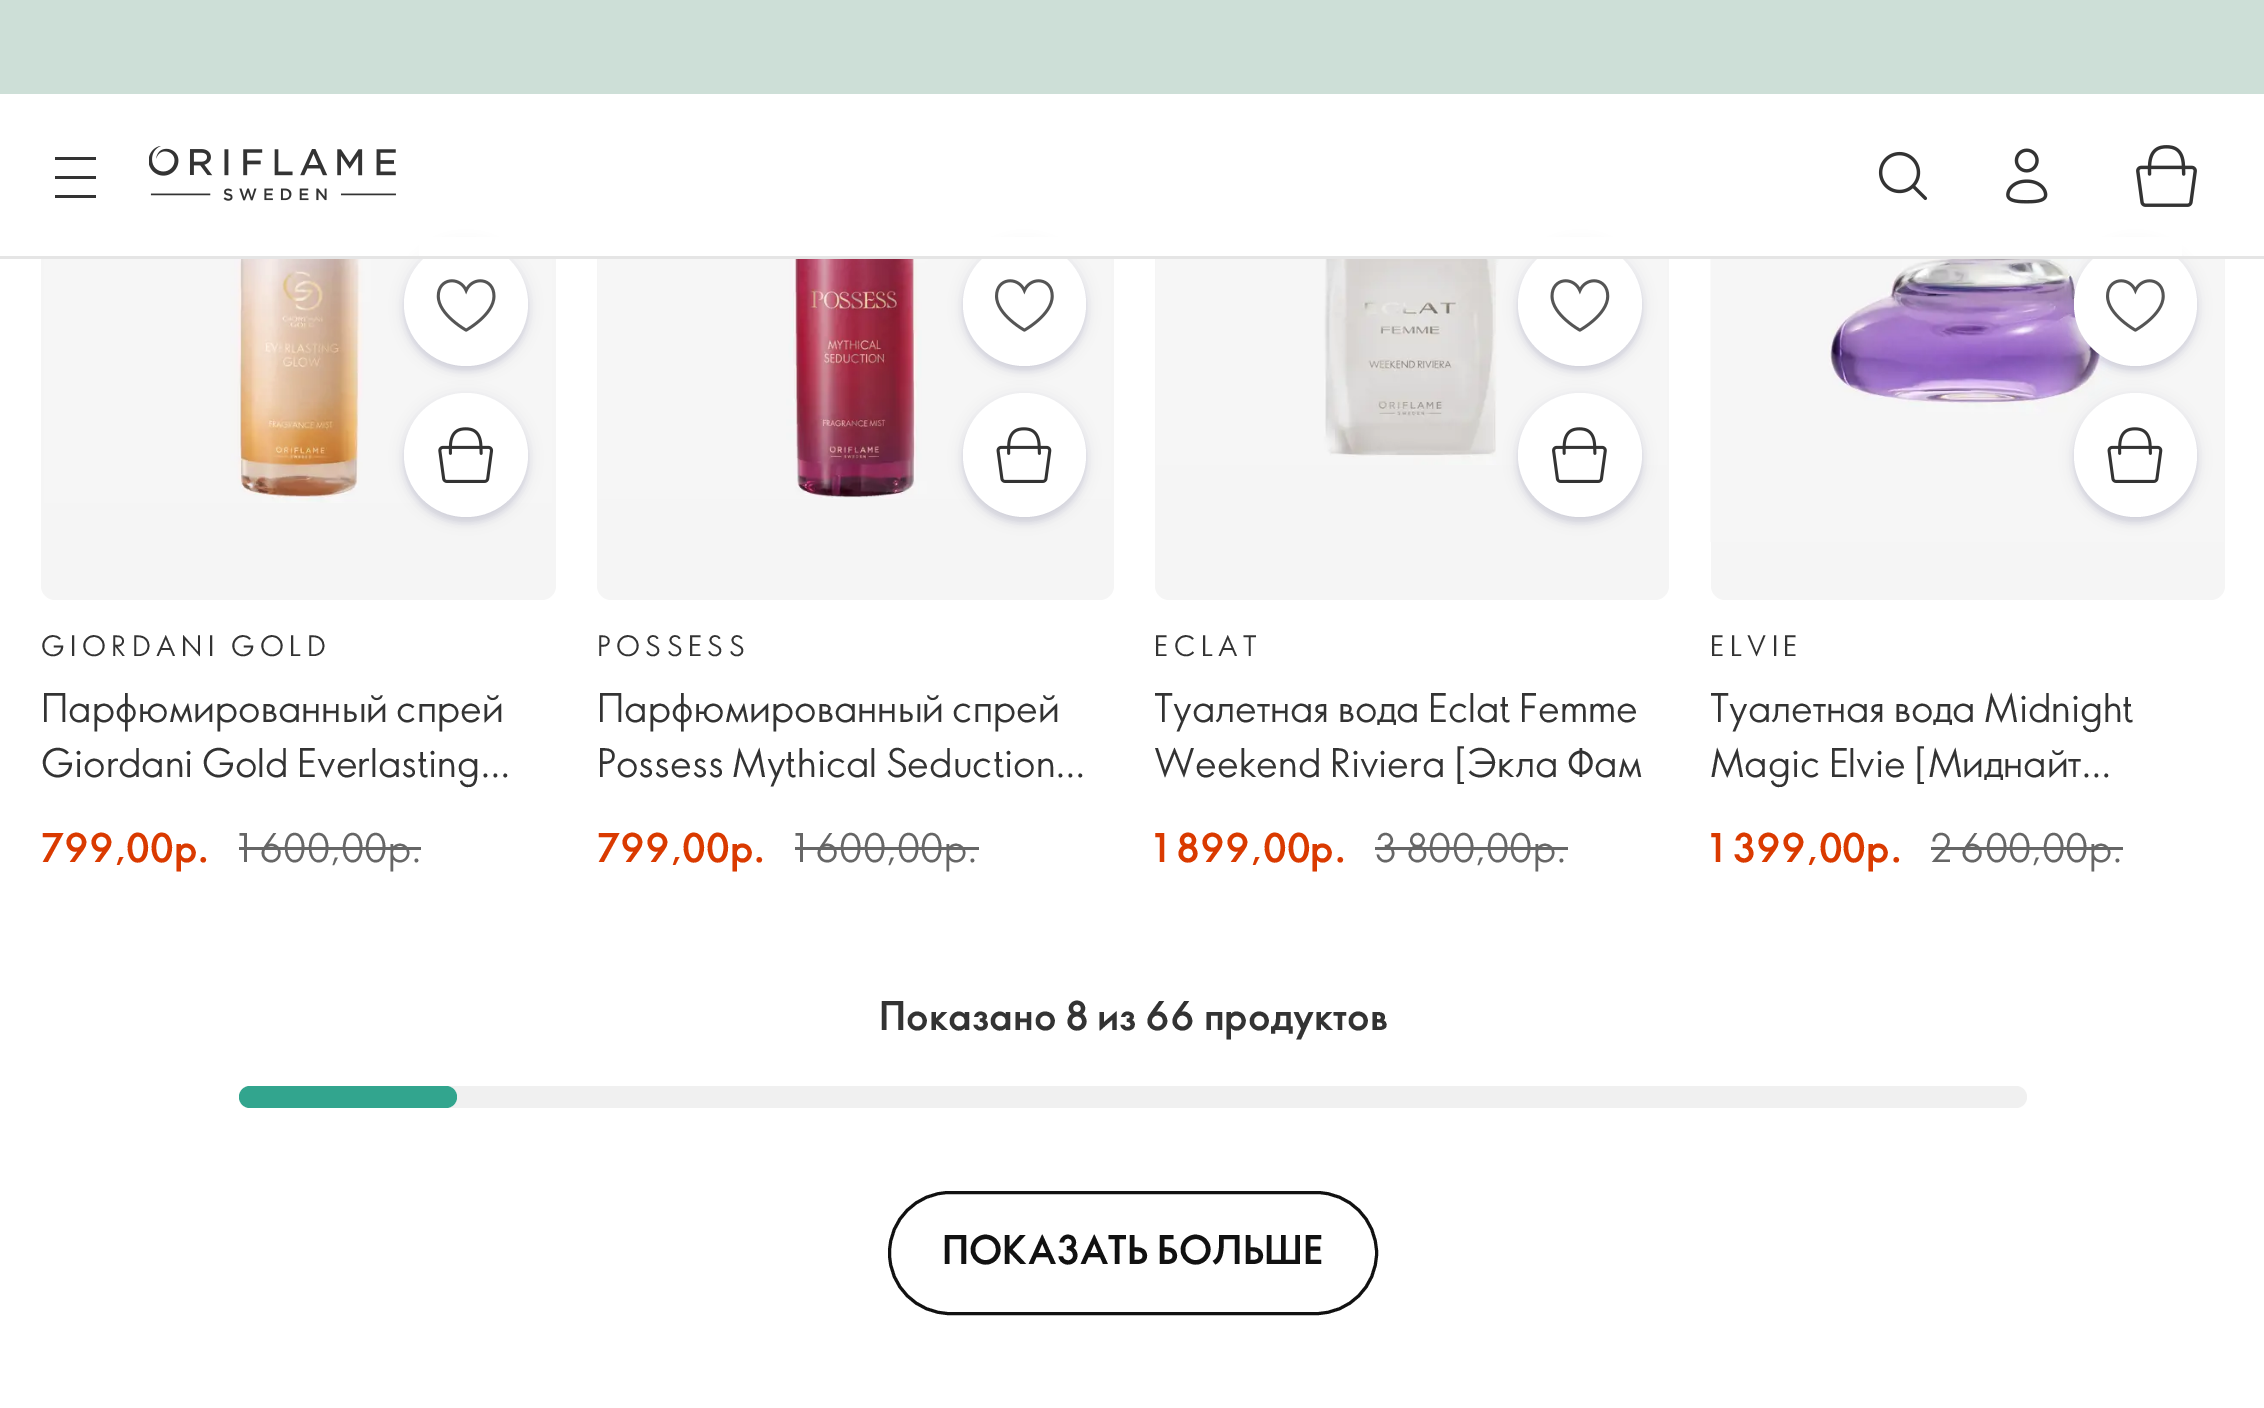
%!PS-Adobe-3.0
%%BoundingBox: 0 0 2264 1408
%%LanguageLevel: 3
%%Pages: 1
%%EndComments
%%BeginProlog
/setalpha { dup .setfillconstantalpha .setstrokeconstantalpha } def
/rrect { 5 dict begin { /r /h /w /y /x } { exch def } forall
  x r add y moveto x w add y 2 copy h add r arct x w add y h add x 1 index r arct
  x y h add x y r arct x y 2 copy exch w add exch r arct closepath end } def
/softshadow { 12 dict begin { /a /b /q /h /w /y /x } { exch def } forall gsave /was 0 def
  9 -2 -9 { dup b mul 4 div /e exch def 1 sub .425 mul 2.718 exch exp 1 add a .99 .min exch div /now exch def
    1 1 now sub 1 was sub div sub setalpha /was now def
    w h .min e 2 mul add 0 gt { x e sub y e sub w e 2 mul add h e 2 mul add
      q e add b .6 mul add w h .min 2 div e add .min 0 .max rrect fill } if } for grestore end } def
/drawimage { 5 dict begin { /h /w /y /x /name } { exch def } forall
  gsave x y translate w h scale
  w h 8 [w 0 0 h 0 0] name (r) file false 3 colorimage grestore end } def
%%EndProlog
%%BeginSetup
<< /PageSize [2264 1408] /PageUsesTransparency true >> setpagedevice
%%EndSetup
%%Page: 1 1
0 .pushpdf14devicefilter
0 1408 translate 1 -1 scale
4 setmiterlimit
1 setgray
0 0 2264 1408 rectfill
0.961 setgray
41 259 515 286 rectfill
(images/7.raw) 44 259 508 244 drawimage
0 0 0.259 setrgbcolor
404 245 124 124 62 7 0.08 softshadow
404 248 124 123 61.5 3 0.08 softshadow
1 setgray
newpath 466 304 62 0 360 arc closepath fill
0.961 setgray
597 259 517 286 rectfill
(images/10.raw) 598 259 513 240 drawimage
0 0 0.259 setrgbcolor
963 245 123 124 61.5 7 0.08 softshadow
963 248 123 123 61.5 3 0.08 softshadow
1 setgray
963 242 123 124 61.5 rrect fill
0.961 setgray
1155 259 514 286 rectfill
(images/13.raw) 1156 259 511 206 drawimage
0 0 0.259 setrgbcolor
1518 245 124 124 62 7 0.08 softshadow
1518 248 124 123 61.5 3 0.08 softshadow
1 setgray
newpath 1580 304 62 0 360 arc closepath fill
0.961 setgray
1711 259 514 286 rectfill
(images/14.raw) 1710 259 514 283 drawimage
0 0 0.259 setrgbcolor
2074 245 123 124 61.5 7 0.08 softshadow
2074 248 123 123 61.5 3 0.08 softshadow
1 setgray
2074 242 123 124 61.5 rrect fill
419 237 1763 19 rectfill
0.898 setgray
0 256 2264 3 rectfill
0.804 0.875 0.843 setrgbcolor
0 0 2264 94 rectfill
0.2 setgray
55 157 41 3 rectfill
55 176 41 3 rectfill
55 195 41 3 rectfill
(images/1.raw) 149 146 247 55 drawimage
(images/2.raw) 1878 151 50 50 drawimage
(images/3.raw) 2006 148 42 56 drawimage
(images/4.raw) 2136 145 61 62 drawimage
(images/5.raw) 436 279 60 53 drawimage
0 0 0.259 setrgbcolor
404 396 124 124 62 7 0.08 softshadow
404 399 124 124 62 3 0.08 softshadow
1 setgray
newpath 466 455 62 0 360 arc closepath fill
(images/6.raw) 438 427 56 56 drawimage
0.961 setgray
newpath 41 545 moveto 556 545 lineto 556 586 lineto 556 593.5 549.5 600 542 600 curveto 55 600 lineto 47.5 600 41 593.5 41 586 curveto closepath fill
0.4 setgray
239 847 182 3 rectfill
(images/8.raw) 995 279 59 53 drawimage
0 0 0.259 setrgbcolor
963 396 123 124 61.5 7 0.08 softshadow
963 399 123 124 61.5 3 0.08 softshadow
1 setgray
963 393 123 124 61.5 rrect fill
(images/9.raw) 996 427 56 56 drawimage
0.961 setgray
newpath 597 545 moveto 1114 545 lineto 1114 586 lineto 1114 593.5 1107.5 600 1100 600 curveto 611 600 lineto 603.5 600 597 593.5 597 586 curveto closepath fill
0.4 setgray
795 847 184 3 rectfill
(images/11.raw) 1550 279 60 53 drawimage
0 0 0.259 setrgbcolor
1518 396 124 124 62 7 0.08 softshadow
1518 399 124 124 62 3 0.08 softshadow
1 setgray
newpath 1580 455 62 0 360 arc closepath fill
(images/12.raw) 1552 427 55 56 drawimage
0.961 setgray
newpath 1155 545 moveto 1669 545 lineto 1669 586 lineto 1669 593.5 1662.5 600 1655 600 curveto 1169 600 lineto 1161.5 600 1155 593.5 1155 586 curveto closepath fill
0.4 setgray
1375 847 193 3 rectfill
(images/8.raw) 2106 279 59 53 drawimage
0 0 0.259 setrgbcolor
2074 396 123 124 61.5 7 0.08 softshadow
2074 399 123 124 61.5 3 0.08 softshadow
1 setgray
2074 393 123 124 61.5 rrect fill
(images/9.raw) 2107 427 56 56 drawimage
0.961 setgray
newpath 1711 545 moveto 2225 545 lineto 2225 586 lineto 2225 593.5 2218.5 600 2211 600 curveto 1725 600 lineto 1717.5 600 1711 593.5 1711 586 curveto closepath fill
0.4 setgray
1931 847 192 3 rectfill
0.941 setgray
239 1086 1788 22 11 rrect fill
0.196 0.647 0.557 setrgbcolor
239 1086 218 22 11 rrect fill
0.067 setgray
3 setlinewidth
889.5 1192.5 487 121 60.5 rrect stroke
/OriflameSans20-Regular [27.5 0 0 -27.5 0 0] selectfont
0.2 setgray
41 656 moveto 5.5 0 (GIORDANI GOLD) ashow
/OriflameSans20-Regular [38.5 0 0 -38.5 0 0] selectfont
41 722 moveto (Парфюмированный спрей) show
41 777 moveto (Giordani Gold Everlasting…) show
/OriflameSans20-Bold [38.5 0 0 -38.5 0 0] selectfont
0.855 0.227 0 setrgbcolor
41 862 moveto (799,00p.) show
/OriflameSans20-Regular [38.5 0 0 -38.5 0 0] selectfont
0.4 setgray
238 862 moveto (1 600,00p.) show
/OriflameSans20-Regular [27.5 0 0 -27.5 0 0] selectfont
0.2 setgray
597 656 moveto 5.5 0 (POSSESS) ashow
/OriflameSans20-Regular [38.5 0 0 -38.5 0 0] selectfont
597 722 moveto (Парфюмированный спрей) show
597 777 moveto (Possess Mythical Seduction…) show
/OriflameSans20-Bold [38.5 0 0 -38.5 0 0] selectfont
0.855 0.227 0 setrgbcolor
597 862 moveto (799,00p.) show
/OriflameSans20-Regular [38.5 0 0 -38.5 0 0] selectfont
0.4 setgray
794 862 moveto (1 600,00p.) show
/OriflameSans20-Regular [27.5 0 0 -27.5 0 0] selectfont
0.2 setgray
1154 656 moveto 5.5 0 (ECLAT) ashow
gsave
1155 682 514 110 rectclip
/OriflameSans20-Regular [38.5 0 0 -38.5 0 0] selectfont
1154 722 moveto (Туалетная вода Eclat Femme) show
grestore
/OriflameSans20-Regular [38.5 0 0 -38.5 0 0] selectfont
1154 777 moveto (Weekend Riviera [Экла Фам) show
gsave
1155 820 193 57 rectclip
/OriflameSans20-Bold [38.5 0 0 -38.5 0 0] selectfont
0.855 0.227 0 setrgbcolor
1154 862 moveto (1 899,00p.) show
grestore
0.4 setgray
1374 862 moveto (3 800,00p.) show
/OriflameSans20-Regular [27.5 0 0 -27.5 0 0] selectfont
0.2 setgray
1710 656 moveto 5.5 0 (ELVIE) ashow
gsave
1711 682 514 110 rectclip
/OriflameSans20-Regular [38.5 0 0 -38.5 0 0] selectfont
1710 722 moveto (Туалетная вода Midnight) show
grestore
/OriflameSans20-Regular [38.5 0 0 -38.5 0 0] selectfont
1710 777 moveto (Magic Elvie [Миднайт…) show
/OriflameSans20-Bold [38.5 0 0 -38.5 0 0] selectfont
0.855 0.227 0 setrgbcolor
1710 862 moveto (1 399,00p.) show
/OriflameSans20-Regular [38.5 0 0 -38.5 0 0] selectfont
0.4 setgray
1930 862 moveto (2 600,00p.) show
/OriflameSans20-Bold [38.5 0 0 -38.5 0 0] selectfont
0.2 setgray
879 1030 moveto (Показано 8 из 66 продуктов) show
0.067 setgray
942 1264 moveto (ПОКАЗАТЬ БОЛЬШЕ) show
.poppdf14devicefilter showpage
%%EOF
